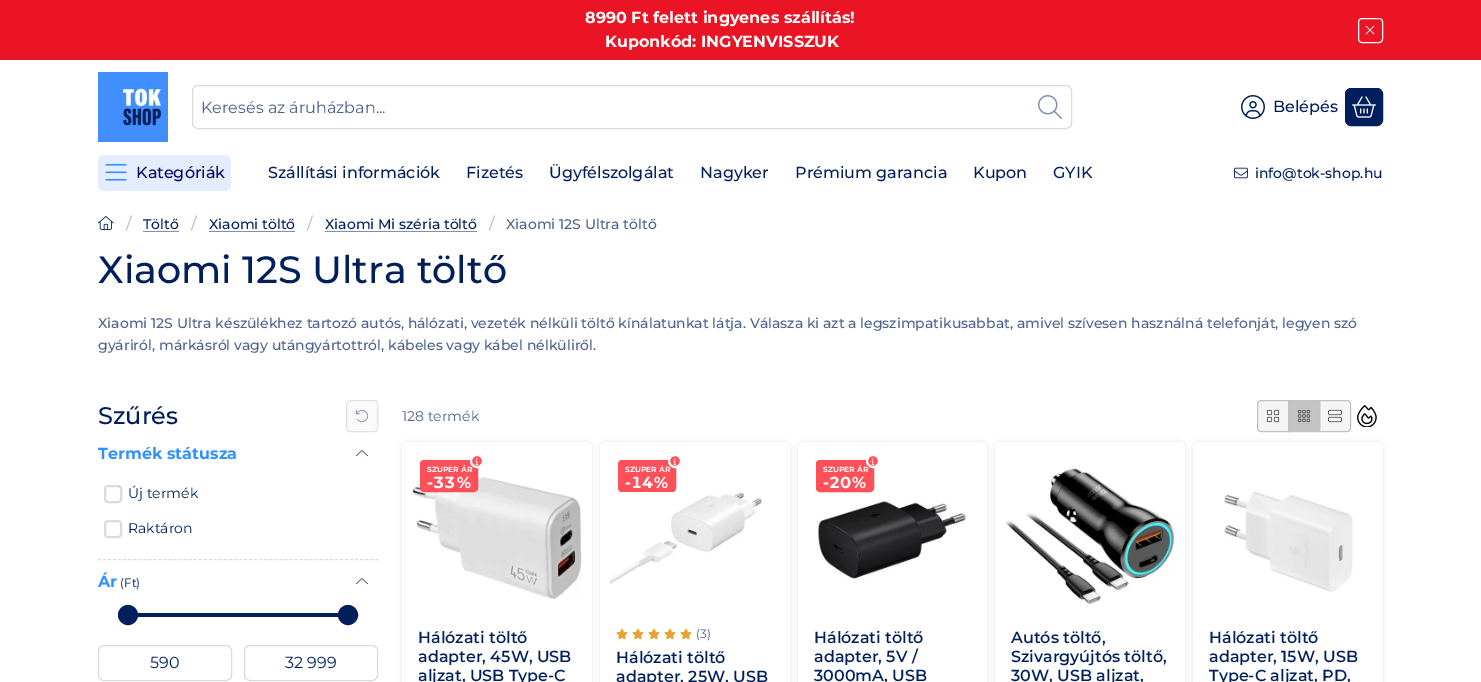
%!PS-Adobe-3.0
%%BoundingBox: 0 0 1481 682
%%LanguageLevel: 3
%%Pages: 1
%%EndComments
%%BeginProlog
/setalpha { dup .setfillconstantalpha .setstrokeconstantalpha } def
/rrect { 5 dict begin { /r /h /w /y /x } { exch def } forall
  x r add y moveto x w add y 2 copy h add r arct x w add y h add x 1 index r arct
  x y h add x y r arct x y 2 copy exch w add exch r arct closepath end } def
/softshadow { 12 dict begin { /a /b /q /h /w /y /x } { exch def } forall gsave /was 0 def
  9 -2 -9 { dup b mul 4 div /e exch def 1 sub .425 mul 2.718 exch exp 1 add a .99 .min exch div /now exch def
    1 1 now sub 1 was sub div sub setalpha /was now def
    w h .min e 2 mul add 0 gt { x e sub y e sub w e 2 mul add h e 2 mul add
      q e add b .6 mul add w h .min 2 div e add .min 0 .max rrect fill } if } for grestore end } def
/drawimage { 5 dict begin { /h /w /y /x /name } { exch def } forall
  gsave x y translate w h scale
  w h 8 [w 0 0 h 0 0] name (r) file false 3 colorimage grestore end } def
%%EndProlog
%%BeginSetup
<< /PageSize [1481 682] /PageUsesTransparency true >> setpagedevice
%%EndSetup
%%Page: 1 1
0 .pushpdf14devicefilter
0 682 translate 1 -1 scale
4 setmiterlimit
1 setgray
0 0 1481 682 rectfill
0.922 0.078 0.141 setrgbcolor
0 0 1481 60 rectfill
1 setgray
1358.5 18.5 24 24 3.5 rrect stroke
(images/1.raw) 1365 25 10 10 drawimage
(images/2.raw) 98 72 70 70 drawimage
0.859 setgray
192.5 85.5 879 43 5.5 rrect stroke
(images/3.raw) 1038 95 24 24 drawimage
(images/4.raw) 1241 95 24 24 drawimage
0.004 0.122 0.365 setrgbcolor
1345.5 88.5 37 37 5.5 rrect gsave fill grestore
stroke
(images/5.raw) 1352 96 24 22 drawimage
0.894 0.929 0.996 setrgbcolor
98 155 133 36 6 rrect fill
(images/6.raw) 105 163 22 18 drawimage
(images/7.raw) 1234 167 14 12 drawimage
(images/8.raw) 98 216 16 14 drawimage
0.502 0.561 0.682 setrgbcolor
143 231 36 1 rectfill
209 231 86 1 rectfill
325 231 152 1 rectfill
0.98 setgray
346.5 400.5 31 31 3.5 rrect gsave fill grestore
0.882 setgray
stroke
(images/9.raw) 355 409 14 14 drawimage
(images/10.raw) 355 450 14 7 drawimage
0.859 setgray
2 setlinewidth
105 486 16 16 3 rrect stroke
105 521 16 16 3 rrect stroke
1 setlinewidth
[3 2.04] 0 setdash
newpath 98 559.5 moveto 378 559.5 lineto stroke
(images/10.raw) 355 578 14 7 drawimage
0.004 0.122 0.365 setrgbcolor
newpath 128 615 9.5 0 360 arc closepath gsave fill grestore
[] 0 setdash
stroke
138 613 200 4 rectfill
newpath 348 615 9.5 0 360 arc closepath gsave fill grestore
stroke
0.859 setgray
98.5 645.5 133 35 5.5 rrect stroke
244.5 645.5 133 35 5.5 rrect stroke
0.961 setgray
newpath 1261 400.5 moveto 1288.5 400.5 lineto 1288.5 431.5 lineto 1261 431.5 lineto 1259 431.5 1257.5 430 1257.5 428 curveto 1257.5 404 lineto 1257.5 402 1259 400.5 1261 400.5 curveto closepath gsave fill grestore
0.761 setgray
stroke
(images/11.raw) 1266 409 14 14 drawimage
0.961 setgray
newpath 1319.5 400.5 moveto 1347 400.5 lineto 1349 400.5 1350.5 402 1350.5 404 curveto 1350.5 428 lineto 1350.5 430 1349 431.5 1347 431.5 curveto 1319.5 431.5 lineto closepath gsave fill grestore
0.761 setgray
stroke
0.769 setgray
newpath 1288.5 400.5 moveto 1319.5 400.5 lineto 1319.5 431.5 lineto 1288.5 431.5 lineto closepath gsave fill grestore
0.761 setgray
stroke
(images/12.raw) 1297 409 14 14 drawimage
(images/13.raw) 1328 409 14 14 drawimage
(images/14.raw) 1357 405 20 22 drawimage
0 setgray
402 442 190 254 6 2.5 0.1 softshadow
1 setgray
402 442 190 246 6 rrect fill
(images/16.raw) 412 477 170 122 drawimage
1 0.314 0.353 setrgbcolor
420.5 460.5 57 31 3.5 rrect gsave fill grestore
stroke
0 setgray
600 442 190 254 6 2.5 0.1 softshadow
1 setgray
600 442 190 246 6 rrect fill
1 0.314 0.353 setrgbcolor
618.5 460.5 57 31 3.5 rrect gsave fill grestore
stroke
(images/17.raw) 610 492 152 93 drawimage
(images/18.raw) 616 628 12 12 drawimage
(images/18.raw) 632 628 12 12 drawimage
(images/18.raw) 648 628 12 12 drawimage
(images/18.raw) 664 628 12 12 drawimage
(images/18.raw) 680 628 12 12 drawimage
0 setgray
798 442 189 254 6 2.5 0.1 softshadow
1 setgray
798 442 189 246 6 rrect fill
1 0.314 0.353 setrgbcolor
816.5 460.5 57 31 3.5 rrect gsave fill grestore
stroke
(images/19.raw) 817 501 149 78 drawimage
0 setgray
995 442 190 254 6 2.5 0.1 softshadow
1 setgray
995 442 190 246 6 rrect fill
(images/20.raw) 1005 468 170 137 drawimage
0 setgray
1193 442 190 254 6 2.5 0.1 softshadow
1 setgray
1193 442 190 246 6 rrect fill
(images/21.raw) 1224 491 129 101 drawimage
/Montserrat-Bold [16 0 0 -16 0 0] selectfont
585 23 moveto (8990 Ft felett ingyenes szállítás!) show
605 47 moveto (Kuponkód: INGYENVISSZUK) show
/Montserrat-Regular [16 0 0 -16 0 0] selectfont
0.302 0.384 0.557 setrgbcolor
201 113 moveto (Keresés az áruházban...) show
/Montserrat-Medium [16 0 0 -16 0 0] selectfont
0.004 0.122 0.365 setrgbcolor
1273 112 moveto (Belépés) show
0.012 0.012 0.388 setrgbcolor
136 178 moveto (Kategóriák) show
0.004 0.122 0.365 setrgbcolor
268 178 moveto (Szállítási információk) show
466 178 moveto (Fizetés) show
549 178 moveto (Ügyfélszolgálat) show
700 178 moveto (Nagyker) show
795 178 moveto (Prémium garancia) show
973 178 moveto (Kupon) show
1053 178 moveto (GYIK) show
/Montserrat-Medium [14 0 0 -14 0 0] selectfont
1255 178 moveto (info@tok-shop.hu) show
/Montserrat-Medium [16 0 0 -16 0 0] selectfont
0.761 setgray
126 229 moveto (/) show
/Montserrat-Medium [14 0 0 -14 0 0] selectfont
0.004 0.122 0.365 setrgbcolor
143 229 moveto (Töltő) show
/Montserrat-Medium [16 0 0 -16 0 0] selectfont
0.761 setgray
191 229 moveto (/) show
/Montserrat-Medium [14 0 0 -14 0 0] selectfont
0.004 0.122 0.365 setrgbcolor
209 229 moveto (Xiaomi töltő) show
/Montserrat-Medium [16 0 0 -16 0 0] selectfont
0.761 setgray
307 229 moveto (/) show
/Montserrat-Medium [14 0 0 -14 0 0] selectfont
0.004 0.122 0.365 setrgbcolor
325 229 moveto (Xiaomi Mi széria töltő) show
/Montserrat-Medium [16 0 0 -16 0 0] selectfont
0.761 setgray
489 229 moveto (/) show
/Montserrat-Medium [14 0 0 -14 0 0] selectfont
0.302 0.384 0.557 setrgbcolor
506 229 moveto (Xiaomi 12S Ultra töltő) show
/Montserrat-Medium [38 0 0 -38 0 0] selectfont
0.004 0.122 0.365 setrgbcolor
98 283 moveto (Xiaomi 12S Ultra töltő) show
/Montserrat-Medium [14 0 0 -14 0 0] selectfont
0.302 0.384 0.557 setrgbcolor
98 328 moveto (Xiaomi 12S Ultra készülékhez tartozó autós, hálózati, vezeték nélküli töltő kínálatunkat látja. Válasza ki azt a legszimpatikusabbat, amivel szívesen használná telefonját, legyen szó) show
98 350 moveto (gyáriról, márkásról vagy utángyártottról, kábeles vagy kábel nélküliről.) show
/Montserrat-Medium [24 0 0 -24 0 0] selectfont
0.004 0.122 0.365 setrgbcolor
98 424 moveto (Szűrés) show
/Montserrat-Bold [16 0 0 -16 0 0] selectfont
0.192 0.565 1 setrgbcolor
98 459 moveto (Termék státusza) show
/Montserrat-Regular [14 0 0 -14 0 0] selectfont
0.004 0.122 0.365 setrgbcolor
128 498 moveto (Új termék) show
128 533 moveto (Raktáron) show
/Montserrat-Bold [16 0 0 -16 0 0] selectfont
0.192 0.565 1 setrgbcolor
98 587 moveto (Ár) show
/Montserrat-Regular [12 0 0 -12 0 0] selectfont
0.004 0.122 0.365 setrgbcolor
120 587 moveto (\(Ft\)) show
/Montserrat-Regular [16 0 0 -16 0 0] selectfont
150 668 moveto (590) show
285 668 moveto (32 999) show
/Montserrat-Regular [14 0 0 -14 0 0] selectfont
0.302 0.384 0.557 setrgbcolor
402 421 moveto (128 termék) show
/Montserrat-Bold [7.5 0 0 -7.5 0 0] selectfont
1 setgray
427 472 moveto (SZUPER ÁR) show
1 0.314 0.353 setrgbcolor
newpath 477 461 6 0 360 arc closepath gsave fill grestore
1 setgray
2 setlinewidth
stroke
(images/15.raw) 475 458 4 7 drawimage
/Montserrat-Bold [16 0 0 -16 0 0] selectfont
427 488 moveto (-) show
/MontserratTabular-Bold [16 0 0 -16 0 0] selectfont
433 488 moveto (33) show
/Montserrat-Bold [16 0 0 -16 0 0] selectfont
457 488 moveto (%) show
/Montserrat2-Medium [16 0 0 -16 0 0] selectfont
0.004 0.122 0.365 setrgbcolor
418 643 moveto (Hálózati töltő) show
418 662 moveto (adapter, 45W, USB) show
418 681 moveto (aljzat, USB Type-C) show
/Montserrat-Bold [7.5 0 0 -7.5 0 0] selectfont
1 setgray
625 472 moveto (SZUPER ÁR) show
1 0.314 0.353 setrgbcolor
newpath 675 461 6 0 360 arc closepath gsave fill grestore
1 setgray
stroke
(images/15.raw) 673 458 4 7 drawimage
/Montserrat-Bold [16 0 0 -16 0 0] selectfont
625 488 moveto (-) show
/MontserratTabular-Bold [16 0 0 -16 0 0] selectfont
631 488 moveto (14) show
/Montserrat-Bold [16 0 0 -16 0 0] selectfont
654 488 moveto (%) show
/Montserrat-Regular [12 0 0 -12 0 0] selectfont
0.302 0.384 0.557 setrgbcolor
696 638 moveto (\(3\)) show
/Montserrat2-Medium [16 0 0 -16 0 0] selectfont
0.004 0.122 0.365 setrgbcolor
616 663 moveto (Hálózati töltő) show
616 682 moveto (adapter, 25W, USB) show
/Montserrat-Bold [7.5 0 0 -7.5 0 0] selectfont
1 setgray
823 472 moveto (SZUPER ÁR) show
1 0.314 0.353 setrgbcolor
newpath 873 461 6 0 360 arc closepath gsave fill grestore
1 setgray
stroke
(images/15.raw) 871 458 4 7 drawimage
/Montserrat-Bold [16 0 0 -16 0 0] selectfont
823 488 moveto (-) show
/MontserratTabular-Bold [16 0 0 -16 0 0] selectfont
829 488 moveto (20) show
/Montserrat-Bold [16 0 0 -16 0 0] selectfont
852 488 moveto (%) show
/Montserrat2-Medium [16 0 0 -16 0 0] selectfont
0.004 0.122 0.365 setrgbcolor
814 643 moveto (Hálózati töltő) show
814 662 moveto (adapter, 5V /) show
814 681 moveto (3000mA, USB) show
1011 643 moveto (Autós töltő,) show
1011 662 moveto (Szivargyújtós töltő,) show
1011 681 moveto (30W, USB aljzat,) show
1209 643 moveto (Hálózati töltő) show
1209 662 moveto (adapter, 15W, USB) show
1209 681 moveto (Type-C aljzat, PD,) show
.poppdf14devicefilter showpage
%%EOF
